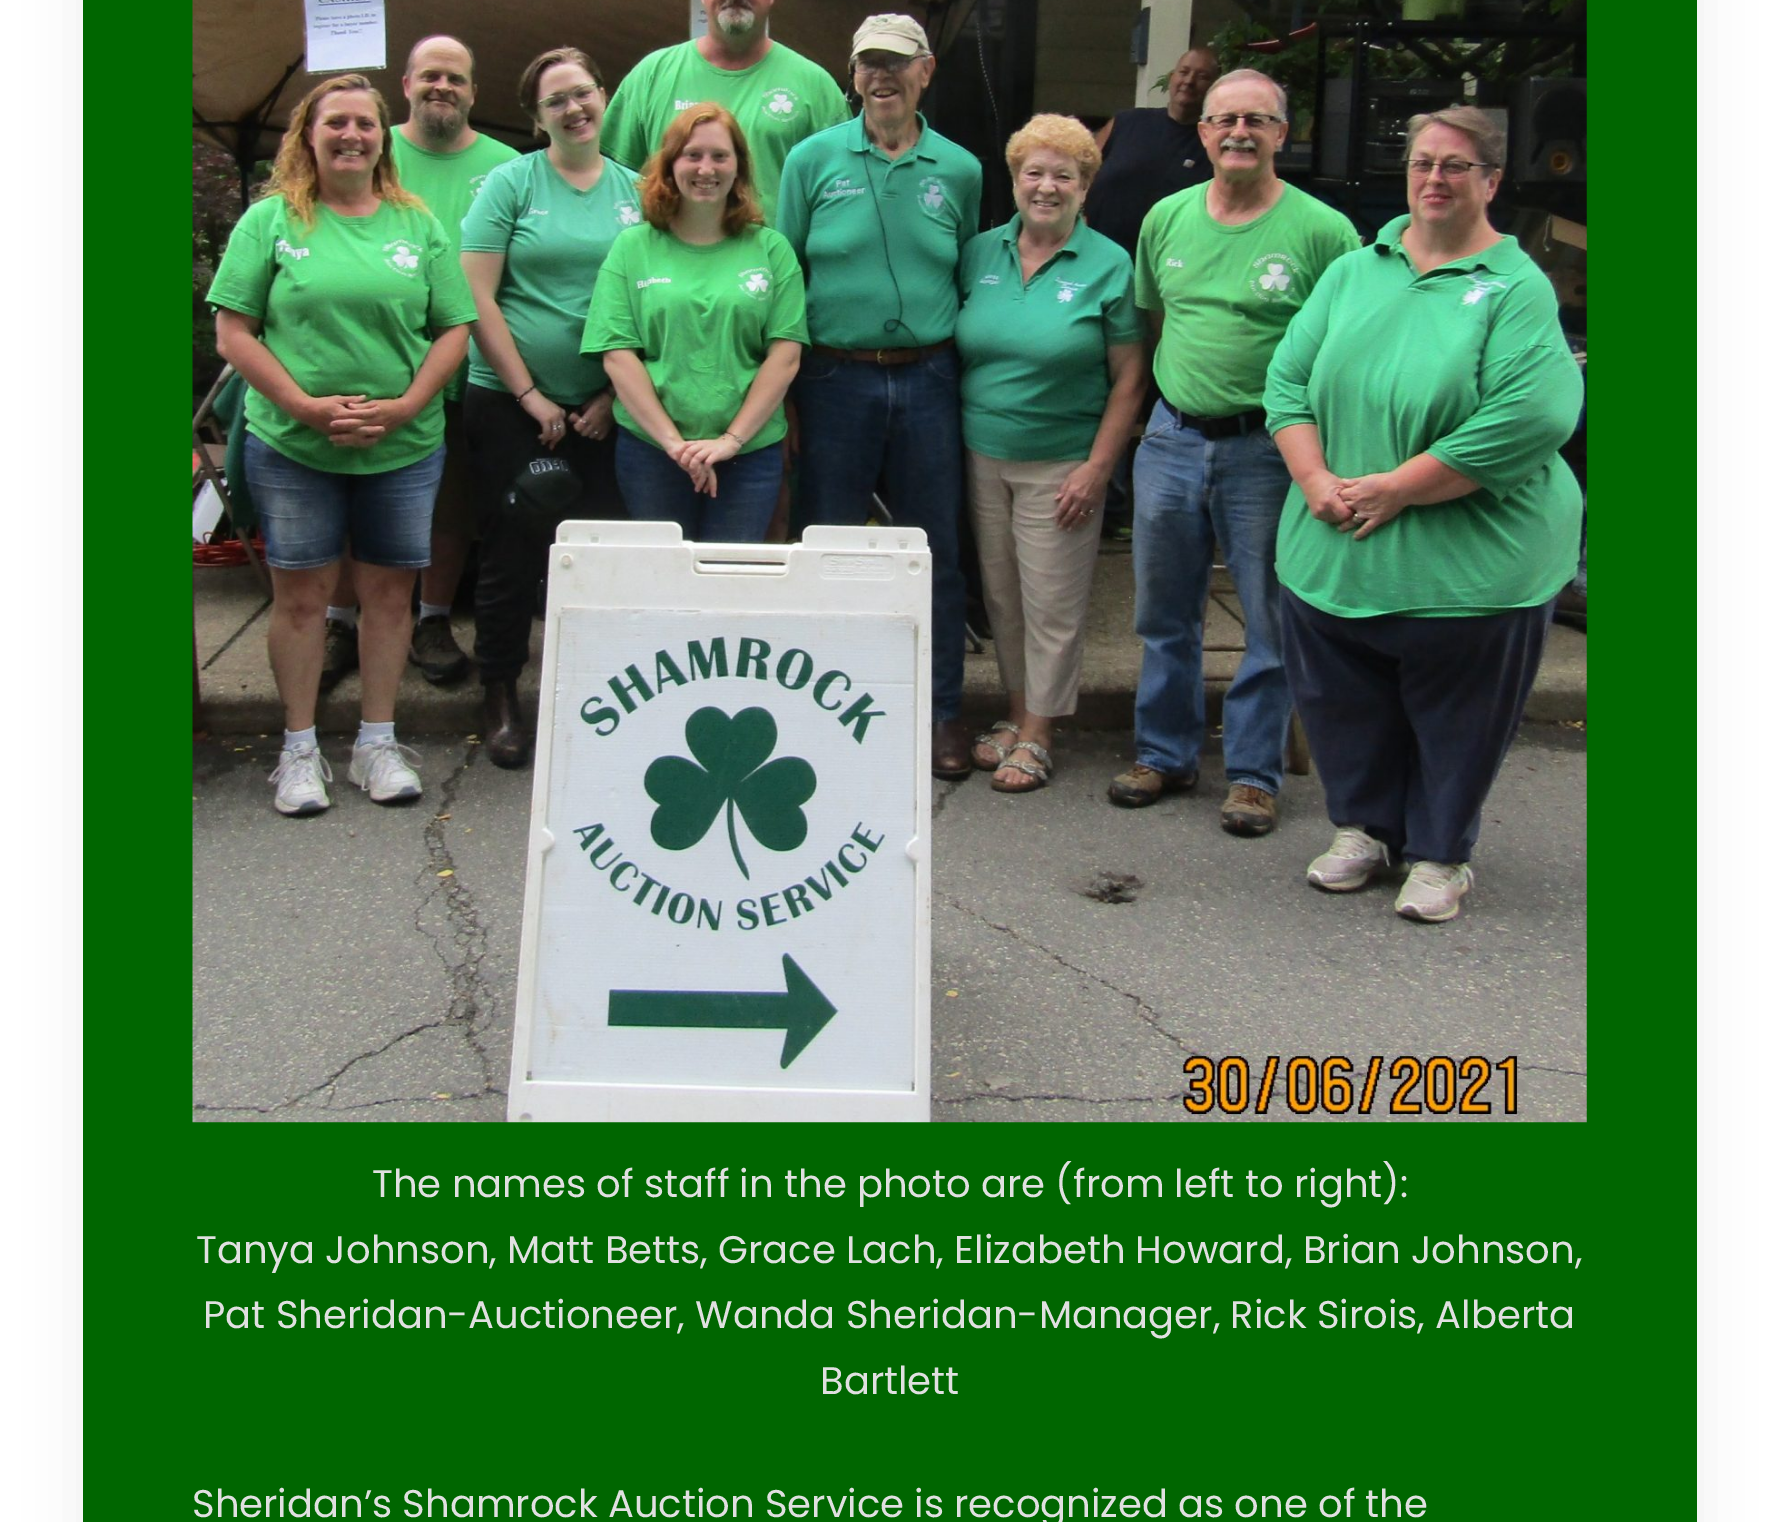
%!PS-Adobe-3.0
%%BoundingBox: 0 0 1777 1522
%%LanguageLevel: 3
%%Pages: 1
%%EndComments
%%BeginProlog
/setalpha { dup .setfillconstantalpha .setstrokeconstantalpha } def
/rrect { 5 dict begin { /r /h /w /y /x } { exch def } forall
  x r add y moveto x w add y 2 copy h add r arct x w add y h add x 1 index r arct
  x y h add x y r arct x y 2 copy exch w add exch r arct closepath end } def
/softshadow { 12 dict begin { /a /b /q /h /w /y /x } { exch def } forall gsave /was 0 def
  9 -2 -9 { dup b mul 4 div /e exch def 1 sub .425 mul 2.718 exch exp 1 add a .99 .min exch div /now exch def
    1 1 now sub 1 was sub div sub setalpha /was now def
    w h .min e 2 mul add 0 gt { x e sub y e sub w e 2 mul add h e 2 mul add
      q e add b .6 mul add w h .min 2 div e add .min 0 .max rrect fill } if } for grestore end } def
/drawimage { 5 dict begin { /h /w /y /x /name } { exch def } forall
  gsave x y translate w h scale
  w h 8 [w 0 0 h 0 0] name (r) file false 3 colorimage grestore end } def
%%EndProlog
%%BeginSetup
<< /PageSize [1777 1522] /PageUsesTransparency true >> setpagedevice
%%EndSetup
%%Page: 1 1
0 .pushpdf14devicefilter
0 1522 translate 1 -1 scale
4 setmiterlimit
1 setgray
0 0 1777 1522 rectfill
0.122 0.114 0.114 setrgbcolor
83 -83 1614 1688 0 27.5 0.07 softshadow
0 0.4 0 setrgbcolor
83 0 1614 1522 rectfill
(images/1.raw) 192 0 1395 1123 drawimage
/Poppins-Regular [38.5 0 0 -38.5 0 0] selectfont
0.878 setgray
372 1197 moveto (The names of staff in the photo are \(from left to right\):) show
196 1263 moveto (Tanya Johnson, Matt Betts, Grace Lach, Elizabeth Howard, Brian Johnson,) show
203 1328 moveto (Pat Sheridan-Auctioneer, Wanda Sheridan-Manager, Rick Sirois, Alberta) show
820 1394 moveto (Bartlett) show
192 1517 moveto (Sheridan’s Shamrock Auction Service is recognized as one of the) show
.poppdf14devicefilter showpage
%%EOF
